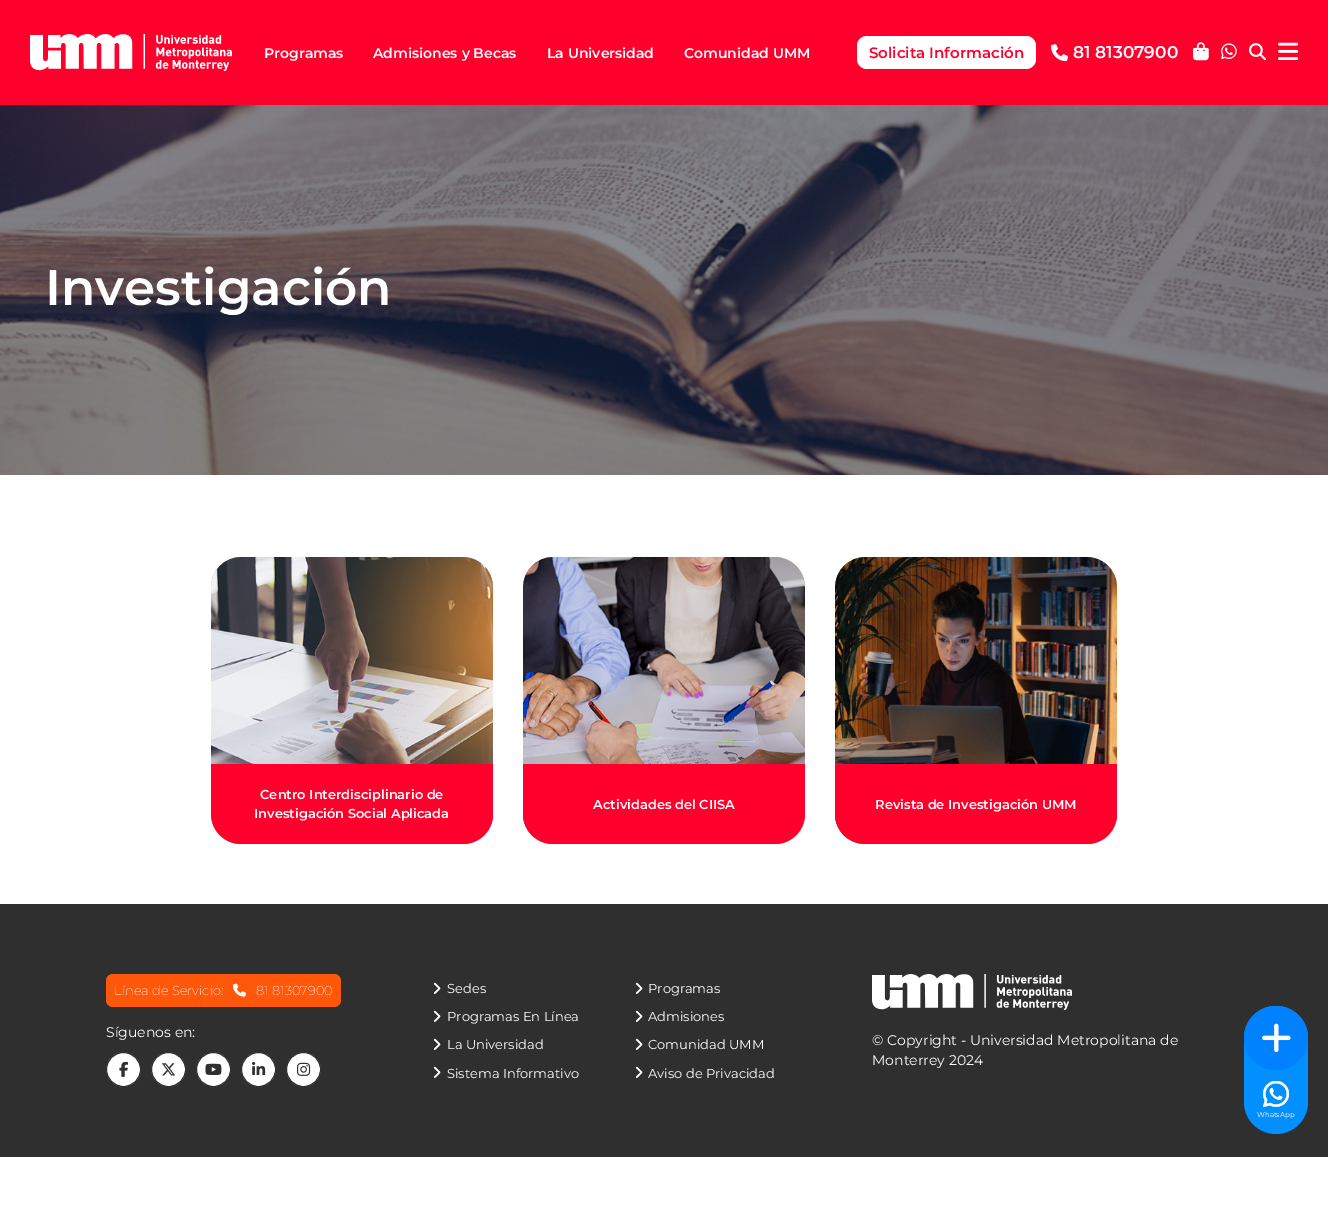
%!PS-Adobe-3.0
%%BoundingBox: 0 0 1328 1229
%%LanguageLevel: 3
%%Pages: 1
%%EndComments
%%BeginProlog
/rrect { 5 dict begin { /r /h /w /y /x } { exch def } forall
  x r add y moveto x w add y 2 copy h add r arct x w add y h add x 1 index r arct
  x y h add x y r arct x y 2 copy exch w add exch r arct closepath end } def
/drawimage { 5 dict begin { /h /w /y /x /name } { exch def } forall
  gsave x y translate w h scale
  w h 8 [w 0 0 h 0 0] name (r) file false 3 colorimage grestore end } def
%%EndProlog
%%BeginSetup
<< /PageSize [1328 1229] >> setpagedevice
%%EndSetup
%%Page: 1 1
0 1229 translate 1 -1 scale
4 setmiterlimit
1 setgray
0 0 1328 1229 rectfill
1 0 0.173 setrgbcolor
0 0 1328 105 rectfill
(images/1.raw) 30 34 202 37 drawimage
1 setgray
857 36 179 33 10 rrect fill
(images/2.raw) 1051 44 17 18 drawimage
(images/3.raw) 1193 42 16 19 drawimage
(images/4.raw) 1221 43 16 17 drawimage
(images/5.raw) 1249 43 17 18 drawimage
(images/6.raw) 1278 42 21 18 drawimage
(images/7.raw) 0 105 1328 370 drawimage
0.69 setgray
211 557 282 287 30 rrect fill
(images/8.raw) 211 557 282 282 drawimage
1 0 0.173 setrgbcolor
newpath 211 764 moveto 493 764 lineto 493 814 lineto 493 830.5 479.5 844 463 844 curveto 241 844 lineto 224.5 844 211 830.5 211 814 curveto closepath fill
0.69 setgray
523 557 282 287 30 rrect fill
(images/9.raw) 523 557 282 282 drawimage
1 0 0.173 setrgbcolor
newpath 523 764 moveto 805 764 lineto 805 814 lineto 805 830.5 791.5 844 775 844 curveto 553 844 lineto 536.5 844 523 830.5 523 814 curveto closepath fill
0.69 setgray
835 557 282 287 30 rrect fill
(images/10.raw) 835 557 282 282 drawimage
1 0 0.173 setrgbcolor
newpath 835 764 moveto 1117 764 lineto 1117 814 lineto 1117 830.5 1103.5 844 1087 844 curveto 865 844 lineto 848.5 844 835 830.5 835 814 curveto closepath fill
0.184 setgray
0 904 1328 253 rectfill
1 0.345 0.039 setrgbcolor
106 974 235 33 7 rrect fill
(images/11.raw) 233 983 13 14 drawimage
1 setgray
newpath 123.5 1069.5 17 0 360 arc closepath gsave fill grestore
0.184 setgray
stroke
(images/12.raw) 119 1061 9 16 drawimage
1 setgray
newpath 168.5 1069.5 17 0 360 arc closepath gsave fill grestore
0.184 setgray
stroke
(images/13.raw) 161 1063 15 13 drawimage
1 setgray
newpath 213.5 1069.5 17 0 360 arc closepath gsave fill grestore
0.184 setgray
stroke
(images/14.raw) 205 1063 17 12 drawimage
1 setgray
newpath 258.5 1069.5 17 0 360 arc closepath gsave fill grestore
0.184 setgray
stroke
(images/15.raw) 252 1061 14 14 drawimage
1 setgray
newpath 303.5 1069.5 17 0 360 arc closepath gsave fill grestore
0.184 setgray
stroke
(images/16.raw) 297 1062 14 14 drawimage
(images/17.raw) 433 982 8 12 drawimage
(images/17.raw) 635 982 8 12 drawimage
(images/17.raw) 433 1010 8 12 drawimage
(images/17.raw) 635 1010 8 12 drawimage
(images/17.raw) 433 1038 8 12 drawimage
(images/17.raw) 635 1038 8 12 drawimage
(images/17.raw) 433 1066 8 12 drawimage
(images/17.raw) 635 1066 8 12 drawimage
(images/18.raw) 872 974 200 36 drawimage
0.008 0.561 1 setrgbcolor
1244 1006 64 128 32 rrect fill
0 0.506 1 setrgbcolor
newpath 1276 1038 32 0 360 arc closepath fill
(images/19.raw) 1262 1023 29 30 drawimage
(images/20.raw) 1263 1081 26 26 drawimage
(images/21.raw) 1269 1087 14 14 drawimage
/Montserrat-SemiBold [14 0 0 -14 0 0] selectfont
1 setgray
264 58 moveto (Programas) show
373 58 moveto (Admisiones y Becas) show
547 58 moveto (La Universidad) show
684 58 moveto (Comunidad UMM) show
/Montserrat-SemiBold [15 0 0 -15 0 0] selectfont
1 0 0.173 setrgbcolor
869 58 moveto (Solicita Información) show
/Montserrat-SemiBold [17 0 0 -17 0 0] selectfont
1 setgray
1073 58 moveto (81 81307900) show
/Montserrat-SemiBold [50 0 0 -50 0 0] selectfont
45 305 moveto (Investigación) show
/Montserrat-SemiBold [13 0 0 -13 0 0] selectfont
260 799 moveto (Centro Interdisciplinario de) show
254 818 moveto (Investigación Social Aplicada) show
593 809 moveto (Actividades del CIISA) show
875 809 moveto (Revista de Investigación UMM) show
/Montserrat-ExtraLight [13 0 0 -13 0 0] selectfont
114 995 moveto (Línea de Servicio:) show
256 995 moveto (81 81307900) show
/Montserrat-Regular [14 0 0 -14 0 0] selectfont
106 1037 moveto (Síguenos en:) show
/Montserrat-Regular [13 0 0 -13 0 0] selectfont
447 993 moveto (Sedes) show
648 993 moveto (Programas) show
447 1021 moveto (Programas En Línea) show
648 1021 moveto (Admisiones) show
447 1049 moveto (La Universidad) show
648 1049 moveto (Comunidad UMM) show
447 1078 moveto (Sistema Informativo) show
648 1078 moveto (Aviso de Privacidad) show
/Montserrat-Regular [14 0 0 -14 0 0] selectfont
872 1045 moveto (© Copyright - Universidad Metropolitana de) show
872 1065 moveto (Monterrey 2024) show
/Montserrat-Regular [7 0 0 -7 0 0] selectfont
1257 1117 moveto (WhatsApp) show
showpage
%%EOF
